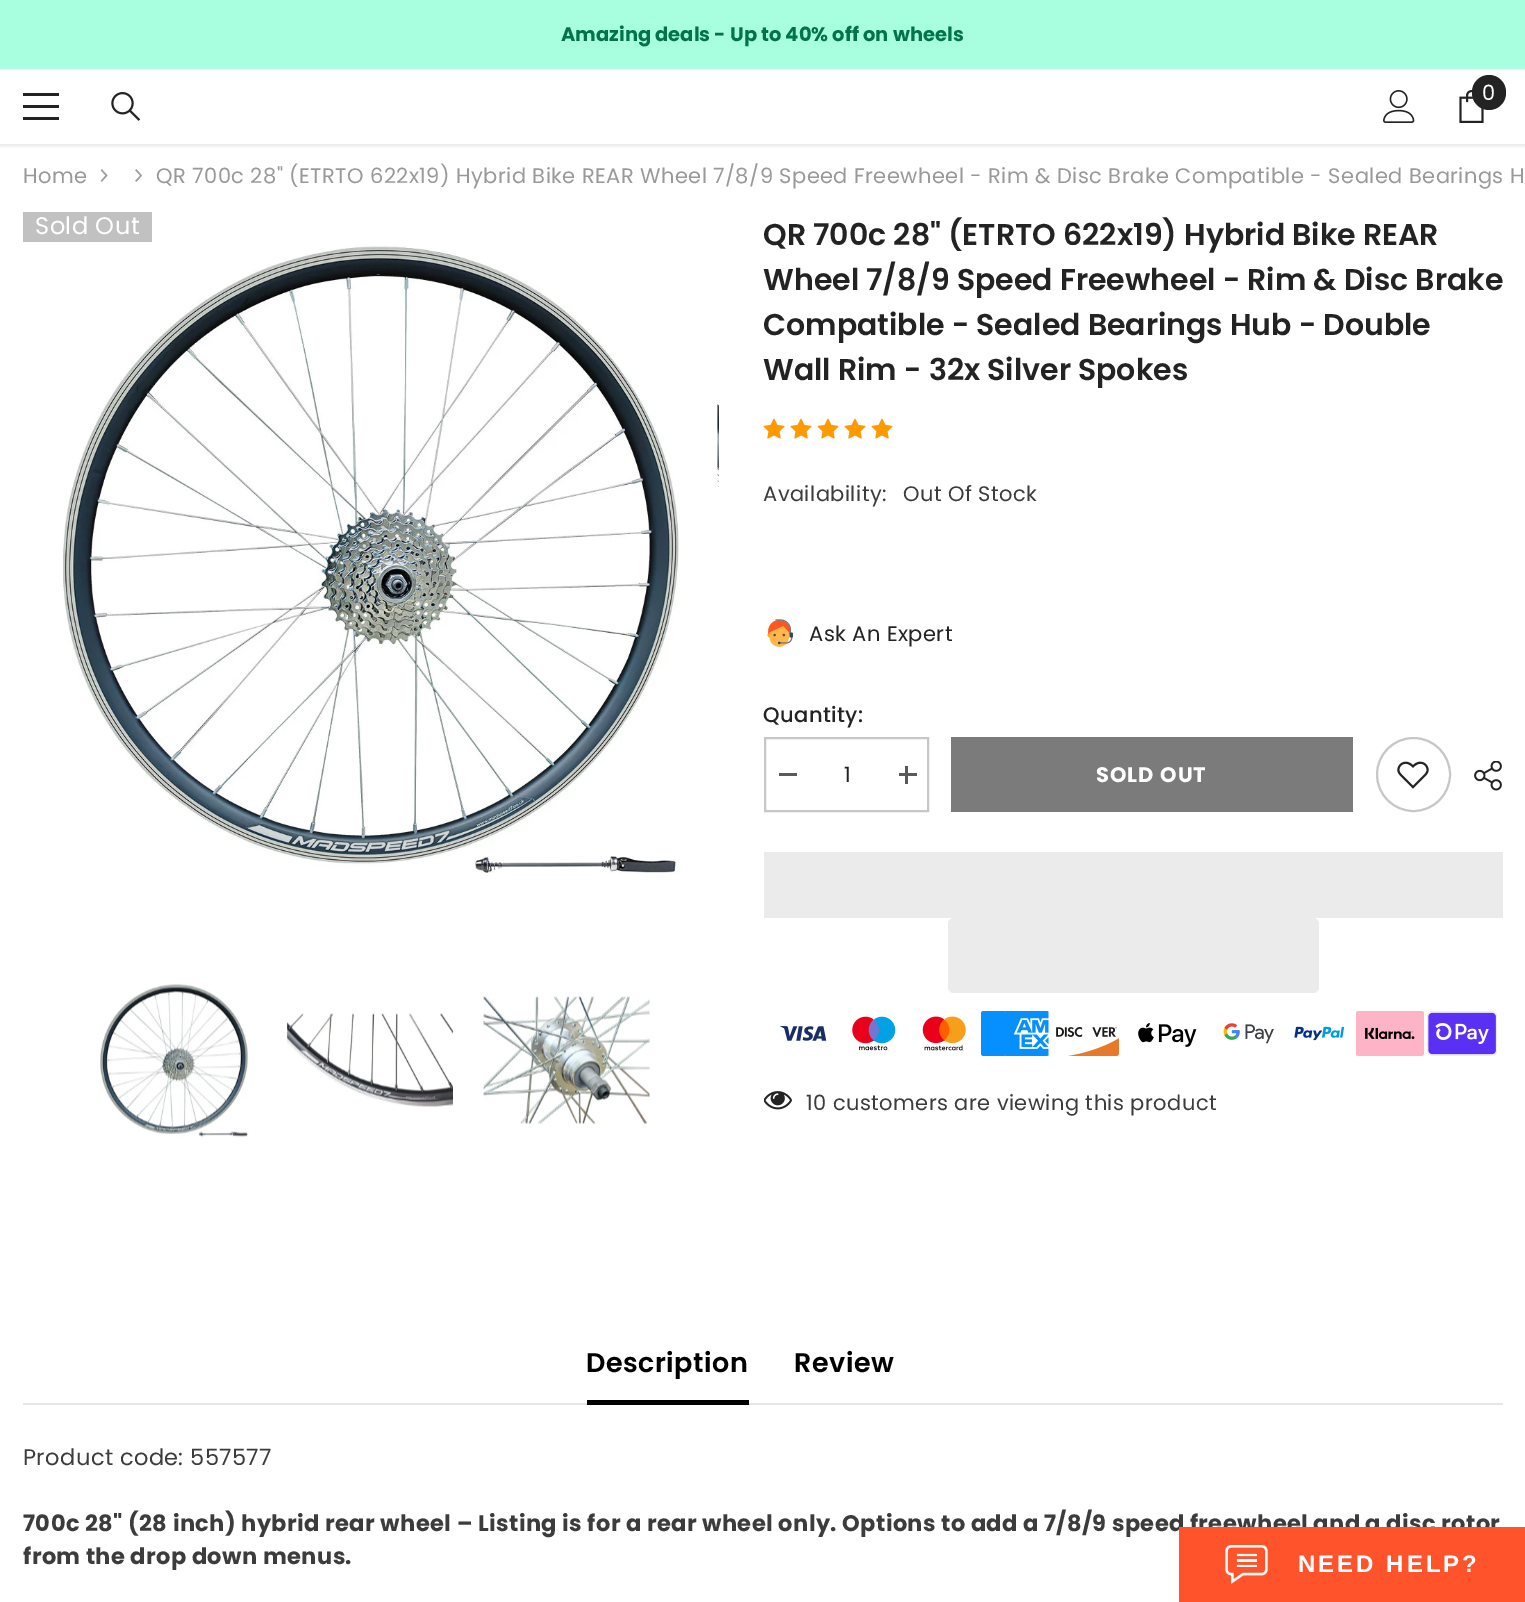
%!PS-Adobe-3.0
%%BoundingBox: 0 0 1525 1602
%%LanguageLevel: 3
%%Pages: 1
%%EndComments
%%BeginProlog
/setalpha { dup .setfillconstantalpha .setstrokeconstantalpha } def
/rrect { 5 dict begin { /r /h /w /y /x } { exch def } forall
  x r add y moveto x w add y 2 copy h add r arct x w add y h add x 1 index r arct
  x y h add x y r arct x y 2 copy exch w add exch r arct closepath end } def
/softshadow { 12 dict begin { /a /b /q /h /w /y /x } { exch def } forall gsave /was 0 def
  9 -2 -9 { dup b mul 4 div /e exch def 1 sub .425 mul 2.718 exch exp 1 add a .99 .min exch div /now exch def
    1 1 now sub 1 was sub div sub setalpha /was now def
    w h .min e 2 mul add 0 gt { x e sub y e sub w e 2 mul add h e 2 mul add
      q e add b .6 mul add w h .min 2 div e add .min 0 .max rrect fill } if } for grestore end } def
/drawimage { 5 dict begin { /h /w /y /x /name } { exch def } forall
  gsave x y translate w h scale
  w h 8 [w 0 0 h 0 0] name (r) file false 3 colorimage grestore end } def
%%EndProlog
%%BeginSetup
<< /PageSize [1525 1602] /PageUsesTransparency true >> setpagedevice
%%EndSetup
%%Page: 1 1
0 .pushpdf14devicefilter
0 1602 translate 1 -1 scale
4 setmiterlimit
1 setgray
0 0 1525 1602 rectfill
0.655 1 0.875 setrgbcolor
0 0 1525 69 rectfill
gsave
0 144 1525 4 rectclip
0 setgray
0 71 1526 75 0 2 0.1 softshadow
grestore
0.137 setgray
23 105 36 3 rectfill
23 93 36 3 rectfill
23 117 36 3 rectfill
(images/1.raw) 111 92 30 29 drawimage
(images/2.raw) 1383 90 32 33 drawimage
(images/3.raw) 1459 90 25 33 drawimage
1472 75 34 35 17 rrect fill
(images/4.raw) 100 169 8 13 drawimage
(images/5.raw) 135 169 7 13 drawimage
0.757 setgray
23 212 129 30 rectfill
(images/6.raw) 62 245 617 628 drawimage
(images/7.raw) 717 404 2 83 drawimage
(images/8.raw) 100 984 149 154 drawimage
(images/9.raw) 287 1013 166 95 drawimage
(images/10.raw) 483 993 167 132 drawimage
(images/11.raw) 763 418 22 21 drawimage
(images/11.raw) 790 418 22 21 drawimage
(images/11.raw) 817 418 22 21 drawimage
(images/11.raw) 844 418 22 21 drawimage
(images/11.raw) 871 418 22 21 drawimage
(images/12.raw) 767 619 27 28 drawimage
0.78 setgray
2 setlinewidth
765 738 163 73 rectstroke
0.353 setgray
779 773 18 3 rectfill
899 773 18 3 rectfill
905 766 3 18 rectfill
0.482 setgray
951 737 402 75 rectfill
0.78 setgray
newpath 1413.5 774.5 36.5 0 360 arc closepath stroke
(images/13.raw) 1397 761 32 28 drawimage
(images/14.raw) 1474 761 28 30 drawimage
0.922 setgray
764 852 739 66 rectfill
948 918 371 75 6 rrect fill
(images/15.raw) 780 1026 47 15 drawimage
(images/16.raw) 852 1016 44 35 drawimage
(images/17.raw) 922 1016 44 35 drawimage
(images/18.raw) 981 1011 68 45 drawimage
(images/19.raw) 1056 1027 63 29 drawimage
(images/20.raw) 1138 1023 59 24 drawimage
(images/21.raw) 1223 1023 51 21 drawimage
(images/22.raw) 1294 1026 51 15 drawimage
(images/23.raw) 1356 1011 68 45 drawimage
(images/24.raw) 1427 1011 70 45 drawimage
(images/25.raw) 764 1091 28 19 drawimage
0.902 setgray
23 1403 1480 2 rectfill
0 setgray
587 1400 162 5 rectfill
/Poppins-Bold [19.5 0 0 -19.5 0 0] selectfont
0.008 0.451 0.29 setrgbcolor
561 41 moveto (Amazing deals - Up to 40% off on wheels) show
/Poppins-Regular [21 0 0 -21 0 0] selectfont
1 setgray
1482 100 moveto (0) show
0.6 setgray
23 183 moveto 0.42 0 (Home) ashow
156 183 moveto 0.42 0 (QR 700c 28" \(ETRTO 622x19\) Hybrid Bike REAR Wheel 7/8/9 Speed Freewheel - Rim & Disc Brake Compatible - Sealed Bearings H) ashow
/Poppins-Regular [24 0 0 -24 0 0] selectfont
1 setgray
35 234 moveto 0.5 0 (Sold Out) ashow
/Poppins-SemiBold [30 0 0 -30 0 0] selectfont
0.137 setgray
763 245 moveto (QR 700c 28" \(ETRTO 622x19\) Hybrid Bike REAR) show
763 290 moveto (Wheel 7/8/9 Speed Freewheel - Rim & Disc Brake) show
763 335 moveto (Compatible - Sealed Bearings Hub - Double) show
763 380 moveto (Wall Rim - 32x Silver Spokes) show
/Poppins-Regular [21 0 0 -21 0 0] selectfont
0.235 setgray
763 501 moveto 0.42 0 (Availability:) ashow
903 501 moveto 0.42 0 (Out Of Stock) ashow
0.137 setgray
809 641 moveto 0.42 0 (Ask An Expert) ashow
/Poppins-Medium [21 0 0 -21 0 0] selectfont
763 722 moveto 0.42 0 (Quantity:) ashow
/Poppins-Regular [21 0 0 -21 0 0] selectfont
844 782 moveto 0.42 0 (1) ashow
/Poppins-Bold [21 0 0 -21 0 0] selectfont
1 setgray
1096 782 moveto 1 0 (SOLD OUT) ashow
/Poppins-Regular [21 0 0 -21 0 0] selectfont
0.235 setgray
806 1110 moveto 0.42 0 (10 customers are viewing this product) ashow
/Poppins-SemiBold [27 0 0 -27 0 0] selectfont
0 setgray
586 1372 moveto 0.5 0 (Description) ashow
794 1372 moveto 0.5 0 (Review) ashow
/Poppins-Regular [22.5 0 0 -22.5 0 0] selectfont
0.235 setgray
23 1465 moveto 0.42 0 (Product code: 557577) ashow
/Poppins-Bold [22.5 0 0 -22.5 0 0] selectfont
23 1531 moveto 0.42 0 (700c 28" \(28 inch\) hybrid rear wheel – Listing is for a rear wheel only. Options to add a 7/8/9 speed freewheel and a disc rotor) ashow
23 1564 moveto 0.42 0 (from the drop down menus.) ashow
0.996 0.325 0.169 setrgbcolor
1179 1527 346 75 rectfill
(images/26.raw) 1225 1545 43 39 drawimage
/LiberationSans-Bold [24 0 0 -24 0 0] selectfont
1 setgray
1298 1572 moveto 3 0 (NEED HELP?) ashow
.poppdf14devicefilter showpage
%%EOF
